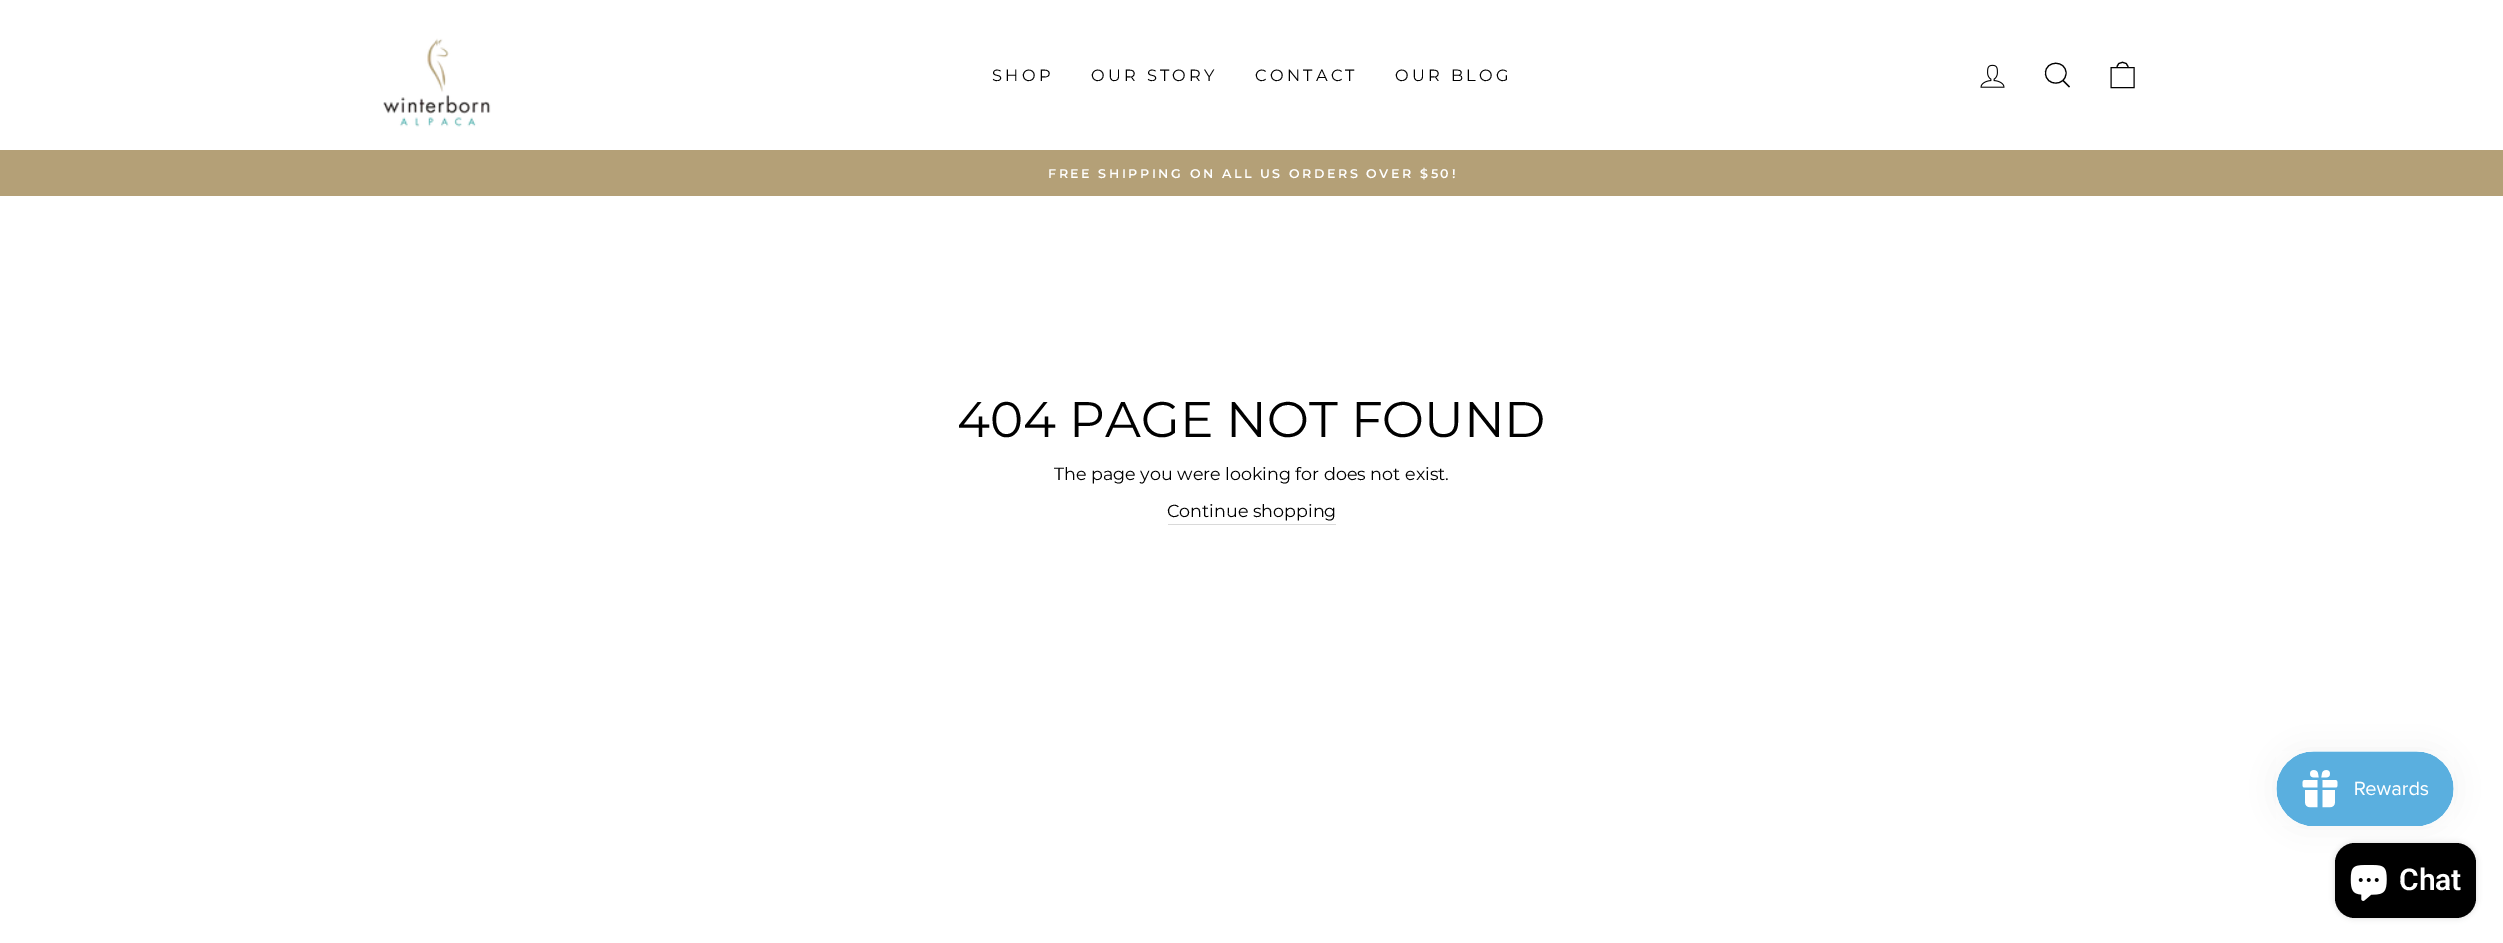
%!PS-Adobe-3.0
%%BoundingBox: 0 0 2503 943
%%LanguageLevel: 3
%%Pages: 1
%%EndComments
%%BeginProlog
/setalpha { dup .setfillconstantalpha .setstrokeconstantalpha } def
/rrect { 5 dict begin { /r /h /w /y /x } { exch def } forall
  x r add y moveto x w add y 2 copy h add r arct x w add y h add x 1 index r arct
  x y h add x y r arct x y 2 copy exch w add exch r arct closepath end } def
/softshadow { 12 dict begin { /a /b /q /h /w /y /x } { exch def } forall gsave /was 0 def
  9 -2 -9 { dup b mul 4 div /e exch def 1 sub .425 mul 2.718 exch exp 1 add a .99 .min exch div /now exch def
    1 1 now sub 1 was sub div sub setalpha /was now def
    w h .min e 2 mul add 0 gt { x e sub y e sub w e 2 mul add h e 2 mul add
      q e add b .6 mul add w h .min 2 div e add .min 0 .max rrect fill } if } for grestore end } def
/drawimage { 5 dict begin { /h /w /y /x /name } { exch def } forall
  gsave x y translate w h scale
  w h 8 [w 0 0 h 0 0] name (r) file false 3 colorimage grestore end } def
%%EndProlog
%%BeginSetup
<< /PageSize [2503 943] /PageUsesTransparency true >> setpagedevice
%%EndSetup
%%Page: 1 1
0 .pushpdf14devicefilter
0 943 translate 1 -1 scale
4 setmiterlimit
1 setgray
0 0 2503 943 rectfill
(images/1.raw) 383 38 108 89 drawimage
(images/2.raw) 1980 64 25 24 drawimage
0 setgray
1.1 setlinewidth
newpath 2066 73 moveto 2066 86.5 2045.5 86.5 2045.5 73 curveto 2045.5 60 2066 60 2066 73 curveto closepath 2069.5 87 moveto 2063 80.5 lineto stroke
newpath 2111 67.5 moveto 2134 67.5 lineto 2134 87.5 lineto 2111 87.5 lineto closepath 2117 67.5 moveto 2117 60.5 2128 60.5 2128 67.5 curveto stroke
0.706 0.627 0.467 setrgbcolor
0 150 2503 46 rectfill
0.851 setgray
1168 524 168 1 rectfill
0 setgray
2335 843 141 75 20 3 0.15 softshadow
2335 843 141 75 20 rrect fill
(images/4.raw) 2350 865 37 36 drawimage
2276 751 178 75 37.5 15.5 0.05 softshadow
(images/3.raw) 2276 751 178 75 drawimage
/Montserrat-Regular [16.25 0 0 -16.25 0 0] selectfont
992 81 moveto 3.25 0 (SHOP) ashow
1091 81 moveto 3.25 0 (OUR STORY) ashow
1255 81 moveto 3.25 0 (CONTACT) ashow
1395 81 moveto 3.25 0 (OUR BLOG) ashow
/Montserrat-SemiBold [12.65 0 0 -12.65 0 0] selectfont
1 setgray
1048 178 moveto 2.55 0 (FREE SHIPPING ON ALL US ORDERS OVER $50!) ashow
/Montserrat-Regular [50 0 0 -50 0 0] selectfont
0 setgray
957 437 moveto (404 PAGE NOT FOUND) show
/Montserrat-Regular [17.5 0 0 -17.5 0 0] selectfont
1054 480 moveto (The page you were looking for does not exist.) show
1167 517 moveto (Continue shopping) show
/Roboto-SemiBold [30 0 0 -30 0 0] selectfont
1 setgray
2399 890 moveto (Chat) show
.poppdf14devicefilter showpage
%%EOF
